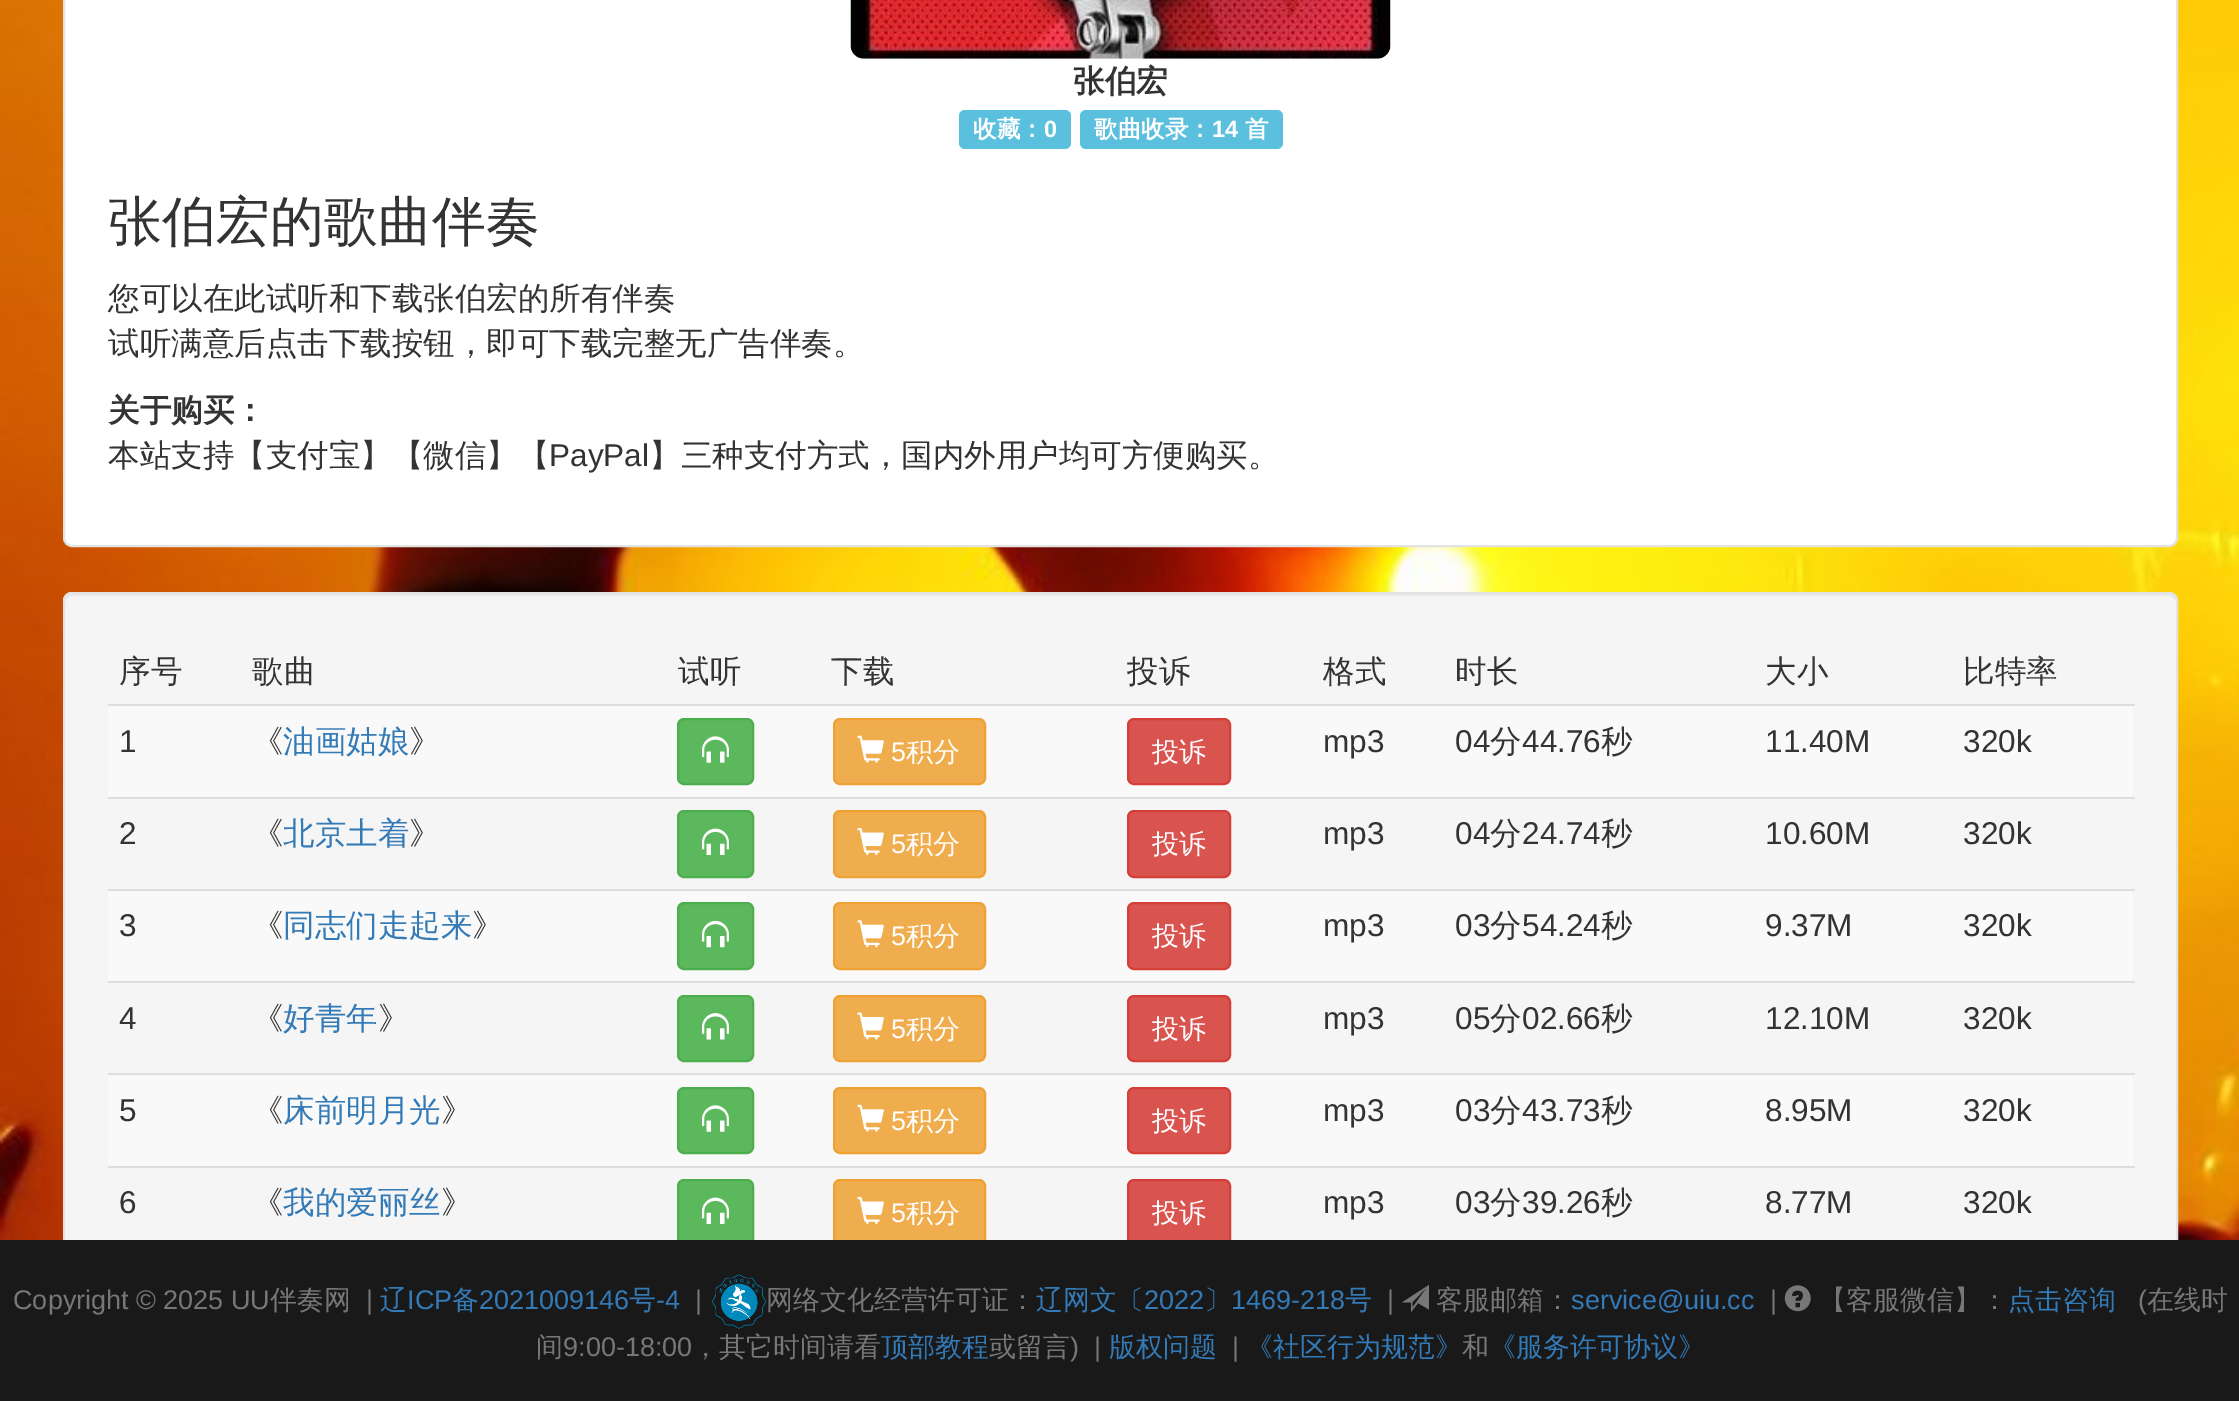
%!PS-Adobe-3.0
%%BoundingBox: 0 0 2239 1401
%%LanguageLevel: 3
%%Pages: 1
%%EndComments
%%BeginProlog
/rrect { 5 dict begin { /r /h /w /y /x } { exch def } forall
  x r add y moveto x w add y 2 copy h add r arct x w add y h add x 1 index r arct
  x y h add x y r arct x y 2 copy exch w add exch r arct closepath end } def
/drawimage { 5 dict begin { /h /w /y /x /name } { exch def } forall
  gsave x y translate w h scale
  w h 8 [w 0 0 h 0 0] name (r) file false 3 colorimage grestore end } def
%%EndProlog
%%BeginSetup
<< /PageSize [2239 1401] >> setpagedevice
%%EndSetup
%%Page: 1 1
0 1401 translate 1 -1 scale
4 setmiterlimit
1 setgray
0 0 2239 1401 rectfill
(images/1.raw) 0 0 2239 1240 drawimage
64 -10 2113 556 8 rrect gsave fill grestore
0.89 setgray
2 setlinewidth
stroke
(images/2.raw) 850 0 541 59 drawimage
0.357 0.753 0.871 setrgbcolor
959 110 112 39 6 rrect fill
1080 110 203 39 6 rrect fill
0.961 setgray
63 592 2115 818 9 rrect fill
0.914 setgray
newpath 72 596 moveto 2169 596 lineto 2173 596 2176 599 2176 603 curveto 2176 599 2174 594 2169 594 curveto 72 594 lineto 67 594 65 599 65 603 curveto 65 599 68 596 72 596 curveto closepath fill
0.89 setgray
64 593 2113 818 8 rrect stroke
0.976 setgray
108 707 2025 90 rectfill
0.361 0.722 0.361 setrgbcolor
678 719 75 65 6 rrect gsave fill grestore
0.298 0.682 0.298 setrgbcolor
stroke
(images/3.raw) 702 736 27 27 drawimage
0.941 0.678 0.306 setrgbcolor
834 719 151 65 6 rrect gsave fill grestore
0.933 0.635 0.212 setrgbcolor
stroke
(images/4.raw) 857 735 27 28 drawimage
0.851 0.325 0.31 setrgbcolor
1128 719 102 65 6 rrect gsave fill grestore
0.831 0.247 0.227 setrgbcolor
stroke
0.867 setgray
108 704 2027 2 rectfill
0.361 0.722 0.361 setrgbcolor
678 811 75 66 6 rrect gsave fill grestore
0.298 0.682 0.298 setrgbcolor
stroke
(images/5.raw) 702 828 27 27 drawimage
0.941 0.678 0.306 setrgbcolor
834 811 151 66 6 rrect gsave fill grestore
0.933 0.635 0.212 setrgbcolor
stroke
(images/6.raw) 857 828 27 27 drawimage
0.851 0.325 0.31 setrgbcolor
1128 811 102 66 6 rrect gsave fill grestore
0.831 0.247 0.227 setrgbcolor
stroke
0.867 setgray
108 797 2027 2 rectfill
0.976 setgray
108 891 2025 90 rectfill
0.361 0.722 0.361 setrgbcolor
678 903 75 66 6 rrect gsave fill grestore
0.298 0.682 0.298 setrgbcolor
stroke
(images/7.raw) 702 920 27 28 drawimage
0.941 0.678 0.306 setrgbcolor
834 903 151 66 6 rrect gsave fill grestore
0.933 0.635 0.212 setrgbcolor
stroke
(images/8.raw) 857 920 27 28 drawimage
0.851 0.325 0.31 setrgbcolor
1128 903 102 66 6 rrect gsave fill grestore
0.831 0.247 0.227 setrgbcolor
stroke
0.867 setgray
108 889 2027 2 rectfill
0.361 0.722 0.361 setrgbcolor
678 996 75 65 6 rrect gsave fill grestore
0.298 0.682 0.298 setrgbcolor
stroke
(images/9.raw) 702 1013 27 27 drawimage
0.941 0.678 0.306 setrgbcolor
834 996 151 65 6 rrect gsave fill grestore
0.933 0.635 0.212 setrgbcolor
stroke
(images/10.raw) 857 1012 27 28 drawimage
0.851 0.325 0.31 setrgbcolor
1128 996 102 65 6 rrect gsave fill grestore
0.831 0.247 0.227 setrgbcolor
stroke
0.867 setgray
108 981 2027 2 rectfill
0.976 setgray
108 1076 2025 90 rectfill
0.361 0.722 0.361 setrgbcolor
678 1088 75 65 6 rrect gsave fill grestore
0.298 0.682 0.298 setrgbcolor
stroke
(images/3.raw) 702 1105 27 27 drawimage
0.941 0.678 0.306 setrgbcolor
834 1088 151 65 6 rrect gsave fill grestore
0.933 0.635 0.212 setrgbcolor
stroke
(images/4.raw) 857 1104 27 28 drawimage
0.851 0.325 0.31 setrgbcolor
1128 1088 102 65 6 rrect gsave fill grestore
0.831 0.247 0.227 setrgbcolor
stroke
0.867 setgray
108 1073 2027 2 rectfill
0.361 0.722 0.361 setrgbcolor
678 1180 75 66 6 rrect gsave fill grestore
0.298 0.682 0.298 setrgbcolor
stroke
(images/5.raw) 702 1197 27 27 drawimage
0.941 0.678 0.306 setrgbcolor
834 1180 151 66 6 rrect gsave fill grestore
0.933 0.635 0.212 setrgbcolor
stroke
(images/6.raw) 857 1197 27 27 drawimage
0.851 0.325 0.31 setrgbcolor
1128 1180 102 66 6 rrect gsave fill grestore
0.831 0.247 0.227 setrgbcolor
stroke
0.867 setgray
108 1166 2027 2 rectfill
0.098 setgray
0 1240 2239 161 rectfill
(images/11.raw) 712 1274 54 55 drawimage
(images/12.raw) 1784 1285 27 27 drawimage
0.467 setgray
newpath 1429 1309.5 moveto 1418 1303 lineto 1411 1312 lineto 1411 1302.5 lineto 1402 1302.5 lineto 1429 1285 lineto closepath 1412.5 1302 moveto 1412.5 1307.5 lineto 1428 1286 lineto closepath fill
/WenQuanYiZenHei-Bold [31.5 0 0 -31.5 0 0] selectfont
0.2 setgray
1073 92 moveto (张伯宏) show
/WenQuanYiZenHei-Bold [23.5 0 0 -23.5 0 0] selectfont
1 setgray
973 137 moveto (收藏：) show
/LiberationSans-Bold [23.5 0 0 -23.5 0 0] selectfont
1044 137 moveto (0) show
/WenQuanYiZenHei-Bold [23.5 0 0 -23.5 0 0] selectfont
1094 137 moveto (歌曲收录：) show
/LiberationSans-Bold [23.5 0 0 -23.5 0 0] selectfont
1212 137 moveto (14) show
/WenQuanYiZenHei-Bold [23.5 0 0 -23.5 0 0] selectfont
1245 137 moveto (首) show
/WenQuanYiZenHei-Medium [54 0 0 -54 0 0] selectfont
0.2 setgray
108 240 moveto (张伯宏的歌曲伴奏) show
/WenQuanYiZenHei-Medium [31.5 0 0 -31.5 0 0] selectfont
108 309 moveto (您可以在此试听和下载张伯宏的所有伴奏) show
108 354 moveto (试听满意后点击下载按钮，即可下载完整无广告伴奏。) show
/WenQuanYiZenHei-Bold [31.5 0 0 -31.5 0 0] selectfont
108 421 moveto (关于购买：) show
/WenQuanYiZenHei-Medium [31.5 0 0 -31.5 0 0] selectfont
108 466 moveto (本站支持【支付宝】【微信】【) show
/LiberationSans-Regular [31.5 0 0 -31.5 0 0] selectfont
549 466 moveto (PayPal) show
/WenQuanYiZenHei-Medium [31.5 0 0 -31.5 0 0] selectfont
649 466 moveto (】三种支付方式，国内外用户均可方便购买。) show
119 682 moveto (序号) show
252 682 moveto (歌曲) show
678 682 moveto (试听) show
831 682 moveto (下载) show
1127 682 moveto (投诉) show
1323 682 moveto (格式) show
1455 682 moveto (时长) show
1765 682 moveto (大小) show
1963 682 moveto (比特率) show
/LiberationSans-Regular [31.5 0 0 -31.5 0 0] selectfont
119 752 moveto (1) show
/WenQuanYiZenHei-Medium [31.5 0 0 -31.5 0 0] selectfont
252 752 moveto (《) show
0.2 0.478 0.718 setrgbcolor
283 752 moveto (油画姑娘) show
0.2 setgray
409 752 moveto (》) show
/LiberationSans-Regular [27 0 0 -27 0 0] selectfont
1 setgray
891 761 moveto (5) show
/WenQuanYiZenHei-Medium [27 0 0 -27 0 0] selectfont
906 761 moveto (积分) show
1152 761 moveto (投诉) show
/LiberationSans-Regular [31.5 0 0 -31.5 0 0] selectfont
0.2 setgray
1323 752 moveto (mp3) show
1455 752 moveto (04) show
/WenQuanYiZenHei-Medium [31.5 0 0 -31.5 0 0] selectfont
1490 752 moveto (分) show
/LiberationSans-Regular [31.5 0 0 -31.5 0 0] selectfont
1522 752 moveto (44.76) show
/WenQuanYiZenHei-Medium [31.5 0 0 -31.5 0 0] selectfont
1601 752 moveto (秒) show
/LiberationSans-Regular [31.5 0 0 -31.5 0 0] selectfont
1765 752 moveto (11.40M) show
1963 752 moveto (320k) show
119 844 moveto (2) show
/WenQuanYiZenHei-Medium [31.5 0 0 -31.5 0 0] selectfont
252 844 moveto (《) show
0.2 0.478 0.718 setrgbcolor
283 844 moveto (北京土着) show
0.2 setgray
409 844 moveto (》) show
/LiberationSans-Regular [27 0 0 -27 0 0] selectfont
1 setgray
891 853 moveto (5) show
/WenQuanYiZenHei-Medium [27 0 0 -27 0 0] selectfont
906 853 moveto (积分) show
1152 853 moveto (投诉) show
/LiberationSans-Regular [31.5 0 0 -31.5 0 0] selectfont
0.2 setgray
1323 844 moveto (mp3) show
1455 844 moveto (04) show
/WenQuanYiZenHei-Medium [31.5 0 0 -31.5 0 0] selectfont
1490 844 moveto (分) show
/LiberationSans-Regular [31.5 0 0 -31.5 0 0] selectfont
1522 844 moveto (24.74) show
/WenQuanYiZenHei-Medium [31.5 0 0 -31.5 0 0] selectfont
1601 844 moveto (秒) show
/LiberationSans-Regular [31.5 0 0 -31.5 0 0] selectfont
1765 844 moveto (10.60M) show
1963 844 moveto (320k) show
119 936 moveto (3) show
/WenQuanYiZenHei-Medium [31.5 0 0 -31.5 0 0] selectfont
252 936 moveto (《) show
0.2 0.478 0.718 setrgbcolor
283 936 moveto (同志们走起来) show
0.2 setgray
472 936 moveto (》) show
/LiberationSans-Regular [27 0 0 -27 0 0] selectfont
1 setgray
891 945 moveto (5) show
/WenQuanYiZenHei-Medium [27 0 0 -27 0 0] selectfont
906 945 moveto (积分) show
1152 945 moveto (投诉) show
/LiberationSans-Regular [31.5 0 0 -31.5 0 0] selectfont
0.2 setgray
1323 936 moveto (mp3) show
1455 936 moveto (03) show
/WenQuanYiZenHei-Medium [31.5 0 0 -31.5 0 0] selectfont
1490 936 moveto (分) show
/LiberationSans-Regular [31.5 0 0 -31.5 0 0] selectfont
1522 936 moveto (54.24) show
/WenQuanYiZenHei-Medium [31.5 0 0 -31.5 0 0] selectfont
1601 936 moveto (秒) show
/LiberationSans-Regular [31.5 0 0 -31.5 0 0] selectfont
1765 936 moveto (9.37M) show
1963 936 moveto (320k) show
119 1029 moveto (4) show
/WenQuanYiZenHei-Medium [31.5 0 0 -31.5 0 0] selectfont
252 1029 moveto (《) show
0.2 0.478 0.718 setrgbcolor
283 1029 moveto (好青年) show
0.2 setgray
378 1029 moveto (》) show
/LiberationSans-Regular [27 0 0 -27 0 0] selectfont
1 setgray
891 1038 moveto (5) show
/WenQuanYiZenHei-Medium [27 0 0 -27 0 0] selectfont
906 1038 moveto (积分) show
1152 1038 moveto (投诉) show
/LiberationSans-Regular [31.5 0 0 -31.5 0 0] selectfont
0.2 setgray
1323 1029 moveto (mp3) show
1455 1029 moveto (05) show
/WenQuanYiZenHei-Medium [31.5 0 0 -31.5 0 0] selectfont
1490 1029 moveto (分) show
/LiberationSans-Regular [31.5 0 0 -31.5 0 0] selectfont
1522 1029 moveto (02.66) show
/WenQuanYiZenHei-Medium [31.5 0 0 -31.5 0 0] selectfont
1601 1029 moveto (秒) show
/LiberationSans-Regular [31.5 0 0 -31.5 0 0] selectfont
1765 1029 moveto (12.10M) show
1963 1029 moveto (320k) show
119 1121 moveto (5) show
/WenQuanYiZenHei-Medium [31.5 0 0 -31.5 0 0] selectfont
252 1121 moveto (《) show
0.2 0.478 0.718 setrgbcolor
283 1121 moveto (床前明月光) show
0.2 setgray
441 1121 moveto (》) show
/LiberationSans-Regular [27 0 0 -27 0 0] selectfont
1 setgray
891 1130 moveto (5) show
/WenQuanYiZenHei-Medium [27 0 0 -27 0 0] selectfont
906 1130 moveto (积分) show
1152 1130 moveto (投诉) show
/LiberationSans-Regular [31.5 0 0 -31.5 0 0] selectfont
0.2 setgray
1323 1121 moveto (mp3) show
1455 1121 moveto (03) show
/WenQuanYiZenHei-Medium [31.5 0 0 -31.5 0 0] selectfont
1490 1121 moveto (分) show
/LiberationSans-Regular [31.5 0 0 -31.5 0 0] selectfont
1522 1121 moveto (43.73) show
/WenQuanYiZenHei-Medium [31.5 0 0 -31.5 0 0] selectfont
1601 1121 moveto (秒) show
/LiberationSans-Regular [31.5 0 0 -31.5 0 0] selectfont
1765 1121 moveto (8.95M) show
1963 1121 moveto (320k) show
119 1213 moveto (6) show
/WenQuanYiZenHei-Medium [31.5 0 0 -31.5 0 0] selectfont
252 1213 moveto (《) show
0.2 0.478 0.718 setrgbcolor
283 1213 moveto (我的爱丽丝) show
0.2 setgray
441 1213 moveto (》) show
/LiberationSans-Regular [27 0 0 -27 0 0] selectfont
1 setgray
891 1222 moveto (5) show
/WenQuanYiZenHei-Medium [27 0 0 -27 0 0] selectfont
906 1222 moveto (积分) show
1152 1222 moveto (投诉) show
/LiberationSans-Regular [31.5 0 0 -31.5 0 0] selectfont
0.2 setgray
1323 1213 moveto (mp3) show
1455 1213 moveto (03) show
/WenQuanYiZenHei-Medium [31.5 0 0 -31.5 0 0] selectfont
1490 1213 moveto (分) show
/LiberationSans-Regular [31.5 0 0 -31.5 0 0] selectfont
1522 1213 moveto (39.26) show
/WenQuanYiZenHei-Medium [31.5 0 0 -31.5 0 0] selectfont
1601 1213 moveto (秒) show
/LiberationSans-Regular [31.5 0 0 -31.5 0 0] selectfont
1765 1213 moveto (8.77M) show
1963 1213 moveto (320k) show
/WenQuanYiZenHei-Medium [27 0 0 -27 0 0] selectfont
0.467 setgray
1819 1309 moveto (【客服微信】：) show
0.2 0.478 0.718 setrgbcolor
2008 1309 moveto (点击咨询) show
/LiberationSans-Regular [27 0 0 -27 0 0] selectfont
0.467 setgray
2138 1309 moveto (\() show
/WenQuanYiZenHei-Medium [27 0 0 -27 0 0] selectfont
2147 1309 moveto (在线时) show
536 1356 moveto (间) show
/LiberationSans-Regular [27 0 0 -27 0 0] selectfont
563 1356 moveto (9:00-18:00) show
/WenQuanYiZenHei-Medium [27 0 0 -27 0 0] selectfont
692 1356 moveto (，其它时间请看) show
0.2 0.478 0.718 setrgbcolor
881 1356 moveto (顶部教程) show
0.467 setgray
989 1356 moveto (或留言) show
/LiberationSans-Regular [27 0 0 -27 0 0] selectfont
1070 1356 moveto (\)) show
13 1309 moveto (Copyright © 2025 UU) show
/WenQuanYiZenHei-Medium [27 0 0 -27 0 0] selectfont
270 1309 moveto (伴奏网) show
/LiberationSans-Regular [27 0 0 -27 0 0] selectfont
366 1309 moveto (|) show
/WenQuanYiZenHei-Medium [27 0 0 -27 0 0] selectfont
0.2 0.478 0.718 setrgbcolor
380 1309 moveto (辽) show
/LiberationSans-Regular [27 0 0 -27 0 0] selectfont
407 1309 moveto (ICP) show
/WenQuanYiZenHei-Medium [27 0 0 -27 0 0] selectfont
452 1309 moveto (备) show
/LiberationSans-Regular [27 0 0 -27 0 0] selectfont
479 1309 moveto (2021009146) show
/WenQuanYiZenHei-Medium [27 0 0 -27 0 0] selectfont
629 1309 moveto (号) show
/LiberationSans-Regular [27 0 0 -27 0 0] selectfont
656 1309 moveto (-4) show
0.467 setgray
695 1309 moveto (|) show
/WenQuanYiZenHei-Medium [27 0 0 -27 0 0] selectfont
766 1309 moveto (网络文化经营许可证：) show
0.2 0.478 0.718 setrgbcolor
1036 1309 moveto (辽网文〔) show
/LiberationSans-Regular [27 0 0 -27 0 0] selectfont
1144 1309 moveto (2022) show
/WenQuanYiZenHei-Medium [27 0 0 -27 0 0] selectfont
1204 1309 moveto (〕) show
/LiberationSans-Regular [27 0 0 -27 0 0] selectfont
1231 1309 moveto (1469-218) show
/WenQuanYiZenHei-Medium [27 0 0 -27 0 0] selectfont
1345 1309 moveto (号) show
/LiberationSans-Regular [27 0 0 -27 0 0] selectfont
0.467 setgray
1387 1309 moveto (|) show
/WenQuanYiZenHei-Medium [27 0 0 -27 0 0] selectfont
1436 1309 moveto (客服邮箱：) show
/LiberationSans-Regular [27 0 0 -27 0 0] selectfont
0.2 0.478 0.718 setrgbcolor
1571 1309 moveto (service@uiu.cc) show
0.467 setgray
1770 1309 moveto (|) show
1094 1356 moveto (|) show
/WenQuanYiZenHei-Medium [27 0 0 -27 0 0] selectfont
0.2 0.478 0.718 setrgbcolor
1109 1356 moveto (版权问题) show
/LiberationSans-Regular [27 0 0 -27 0 0] selectfont
0.467 setgray
1232 1356 moveto (|) show
/WenQuanYiZenHei-Medium [27 0 0 -27 0 0] selectfont
0.2 0.478 0.718 setrgbcolor
1246 1356 moveto (《社区行为规范》) show
0.467 setgray
1462 1356 moveto (和) show
0.2 0.478 0.718 setrgbcolor
1489 1356 moveto (《服务许可协议》) show
showpage
%%EOF
